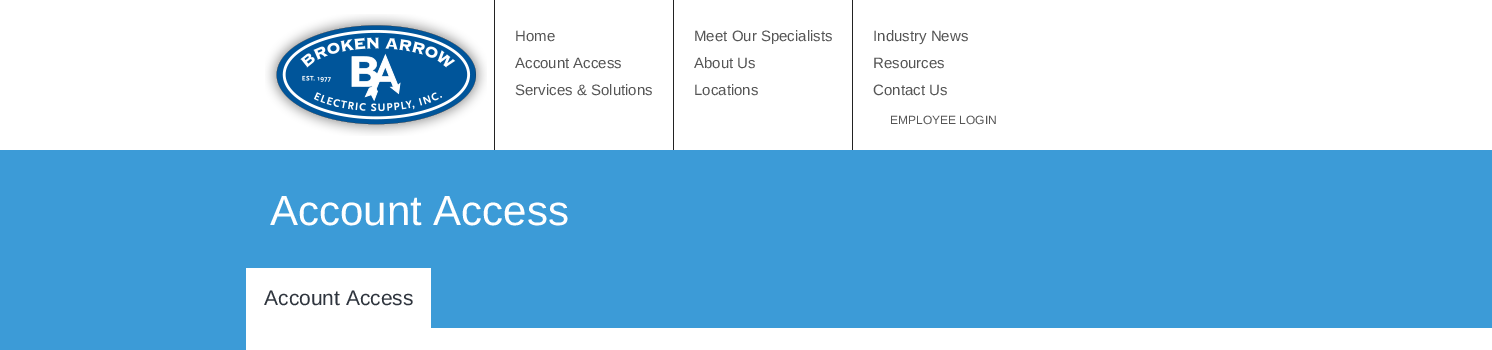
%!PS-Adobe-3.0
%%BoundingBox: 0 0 1492 350
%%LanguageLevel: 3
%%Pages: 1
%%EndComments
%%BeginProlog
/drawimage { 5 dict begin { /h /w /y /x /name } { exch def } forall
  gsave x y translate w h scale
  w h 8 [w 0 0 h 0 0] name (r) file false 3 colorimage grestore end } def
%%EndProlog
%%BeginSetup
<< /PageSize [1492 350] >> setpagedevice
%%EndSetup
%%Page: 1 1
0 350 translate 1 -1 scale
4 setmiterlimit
1 setgray
0 0 1492 350 rectfill
(images/1.raw) 265 14 222 122 drawimage
0.133 setgray
494 0 1 150 rectfill
673 0 1 150 rectfill
852 0 1 150 rectfill
0.235 0.608 0.843 setrgbcolor
0 150 1492 200 rectfill
1 setgray
246 268 185 60 rectfill
246 328 1246 22 rectfill
/LiberationSans-Regular [15 0 0 -15 0 0] selectfont
0.333 setgray
515 41 moveto (Home) show
515 68 moveto (Account Access) show
515 95 moveto (Services & Solutions) show
694 41 moveto (Meet Our Specialists) show
694 68 moveto (About Us) show
694 95 moveto (Locations) show
873 41 moveto (Industry News) show
873 68 moveto (Resources) show
873 95 moveto (Contact Us) show
/LiberationSans-Regular [12 0 0 -12 0 0] selectfont
890 124 moveto (EMPLOYEE LOGIN) show
/LiberationSans-Regular [42 0 0 -42 0 0] selectfont
1 setgray
270 225 moveto (Account Access) show
/LiberationSans-Regular [21 0 0 -21 0 0] selectfont
0.184 0.208 0.243 setrgbcolor
264 305 moveto (Account Access) show
showpage
%%EOF
